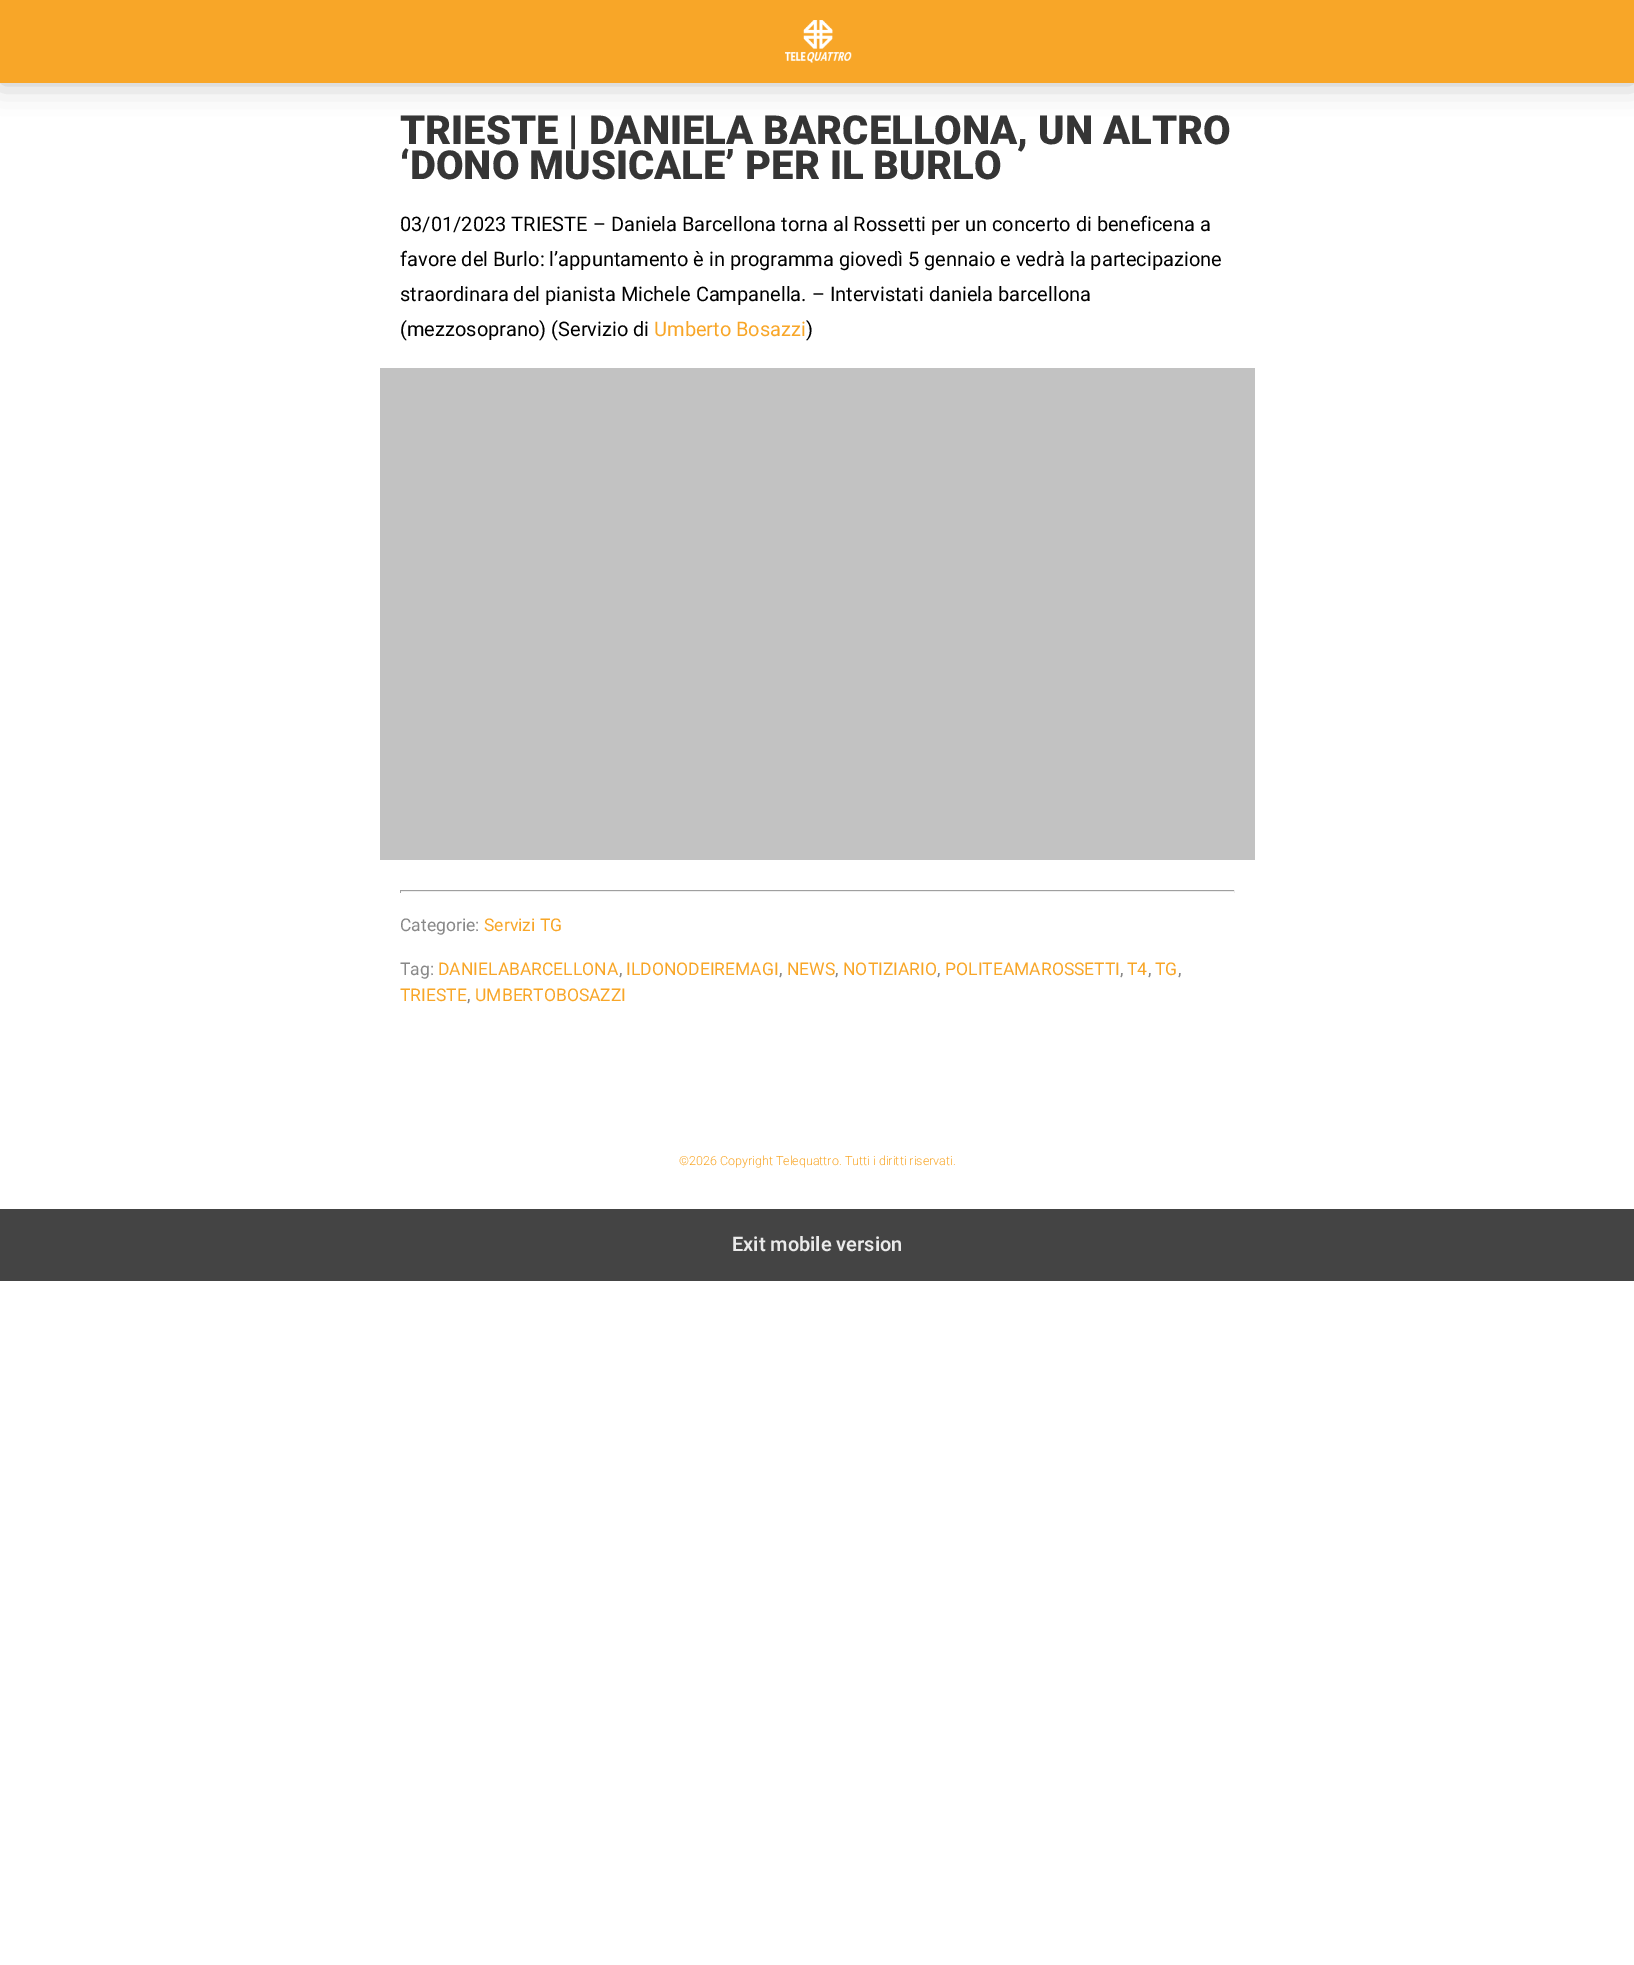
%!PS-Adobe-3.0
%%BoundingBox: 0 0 1634 1965
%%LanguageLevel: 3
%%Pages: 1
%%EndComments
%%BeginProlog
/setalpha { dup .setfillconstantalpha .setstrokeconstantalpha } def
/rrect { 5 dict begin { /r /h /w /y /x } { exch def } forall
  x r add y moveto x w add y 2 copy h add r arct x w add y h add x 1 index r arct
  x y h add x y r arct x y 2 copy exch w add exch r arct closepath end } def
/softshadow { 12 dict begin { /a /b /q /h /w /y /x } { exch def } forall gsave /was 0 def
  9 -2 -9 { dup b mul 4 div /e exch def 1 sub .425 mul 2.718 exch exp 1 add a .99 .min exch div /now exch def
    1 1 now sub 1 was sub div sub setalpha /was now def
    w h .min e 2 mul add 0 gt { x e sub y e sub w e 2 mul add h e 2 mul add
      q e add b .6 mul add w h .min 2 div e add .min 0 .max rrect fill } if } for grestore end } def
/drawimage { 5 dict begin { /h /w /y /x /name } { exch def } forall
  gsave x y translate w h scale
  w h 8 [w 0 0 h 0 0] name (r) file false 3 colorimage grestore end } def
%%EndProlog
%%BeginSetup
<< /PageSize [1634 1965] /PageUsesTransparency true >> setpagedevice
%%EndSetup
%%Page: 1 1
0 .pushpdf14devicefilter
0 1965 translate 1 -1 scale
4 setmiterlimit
1 setgray
0 0 1634 1965 rectfill
0 setgray
0 0 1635 83 0 15 0.25 softshadow
0.973 0.651 0.157 setrgbcolor
0 0 1634 83 rectfill
(images/1.raw) 785 20 67 43 drawimage
0.761 setgray
380 368 875 492 rectfill
0.624 setgray
400 890 835 1 rectfill
0.933 setgray
1234 890 1 3 rectfill
400 891 835 1 rectfill
0.624 setgray
400 890 1 3 rectfill
0.267 setgray
0 1209 1634 72 rectfill
/Roboto-Black [40 0 0 -40 0 0] selectfont
0.208 setgray
400 144 moveto (TRIESTE | DANIELA BARCELLONA, UN ALTRO) show
400 179 moveto (‘DONO MUSICALE’ PER IL BURLO) show
/Roboto-Regular [20 0 0 -20 0 0] selectfont
0 setgray
400 231 moveto (03/01/2023 TRIESTE – Daniela Barcellona torna al Rossetti per un concerto di beneficena a) show
400 266 moveto (favore del Burlo: l’appuntamento è in programma giovedì 5 gennaio e vedrà la partecipazione) show
400 301 moveto (straordinara del pianista Michele Campanella. – Intervistati daniela barcellona) show
400 336 moveto (\(mezzosoprano\) \(Servizio di) show
0.973 0.651 0.157 setrgbcolor
654 336 moveto (Umberto Bosazzi) show
0 setgray
806 336 moveto (\)) show
/Roboto-Regular [17.5 0 0 -17.5 0 0] selectfont
0.533 setgray
400 931 moveto (Categorie:) show
0.973 0.651 0.157 setrgbcolor
484 931 moveto (Servizi TG) show
0.533 setgray
400 975 moveto (Tag:) show
0.973 0.651 0.157 setrgbcolor
438 975 moveto (DANIELABARCELLONA) show
0.533 setgray
619 975 moveto (,) show
0.973 0.651 0.157 setrgbcolor
626 975 moveto (ILDONODEIREMAGI) show
0.533 setgray
779 975 moveto (,) show
0.973 0.651 0.157 setrgbcolor
787 975 moveto (NEWS) show
0.533 setgray
835 975 moveto (,) show
0.973 0.651 0.157 setrgbcolor
843 975 moveto (NOTIZIARIO) show
0.533 setgray
937 975 moveto (,) show
0.973 0.651 0.157 setrgbcolor
945 975 moveto (POLITEAMAROSSETTI) show
0.533 setgray
1120 975 moveto (,) show
0.973 0.651 0.157 setrgbcolor
1127 975 moveto (T4) show
0.533 setgray
1148 975 moveto (,) show
0.973 0.651 0.157 setrgbcolor
1155 975 moveto (TG) show
0.533 setgray
1178 975 moveto (,) show
0.973 0.651 0.157 setrgbcolor
400 1001 moveto (TRIESTE) show
0.533 setgray
467 1001 moveto (,) show
0.973 0.651 0.157 setrgbcolor
475 1001 moveto (UMBERTOBOSAZZI) show
/Roboto-Light [12.5 0 0 -12.5 0 0] selectfont
679 1165 moveto (©2026 Copyright Telequattro. Tutti i diritti riservati.) show
/Roboto-SemiBold [20 0 0 -20 0 0] selectfont
0.918 setgray
732 1251 moveto (Exit mobile version) show
.poppdf14devicefilter showpage
%%EOF
